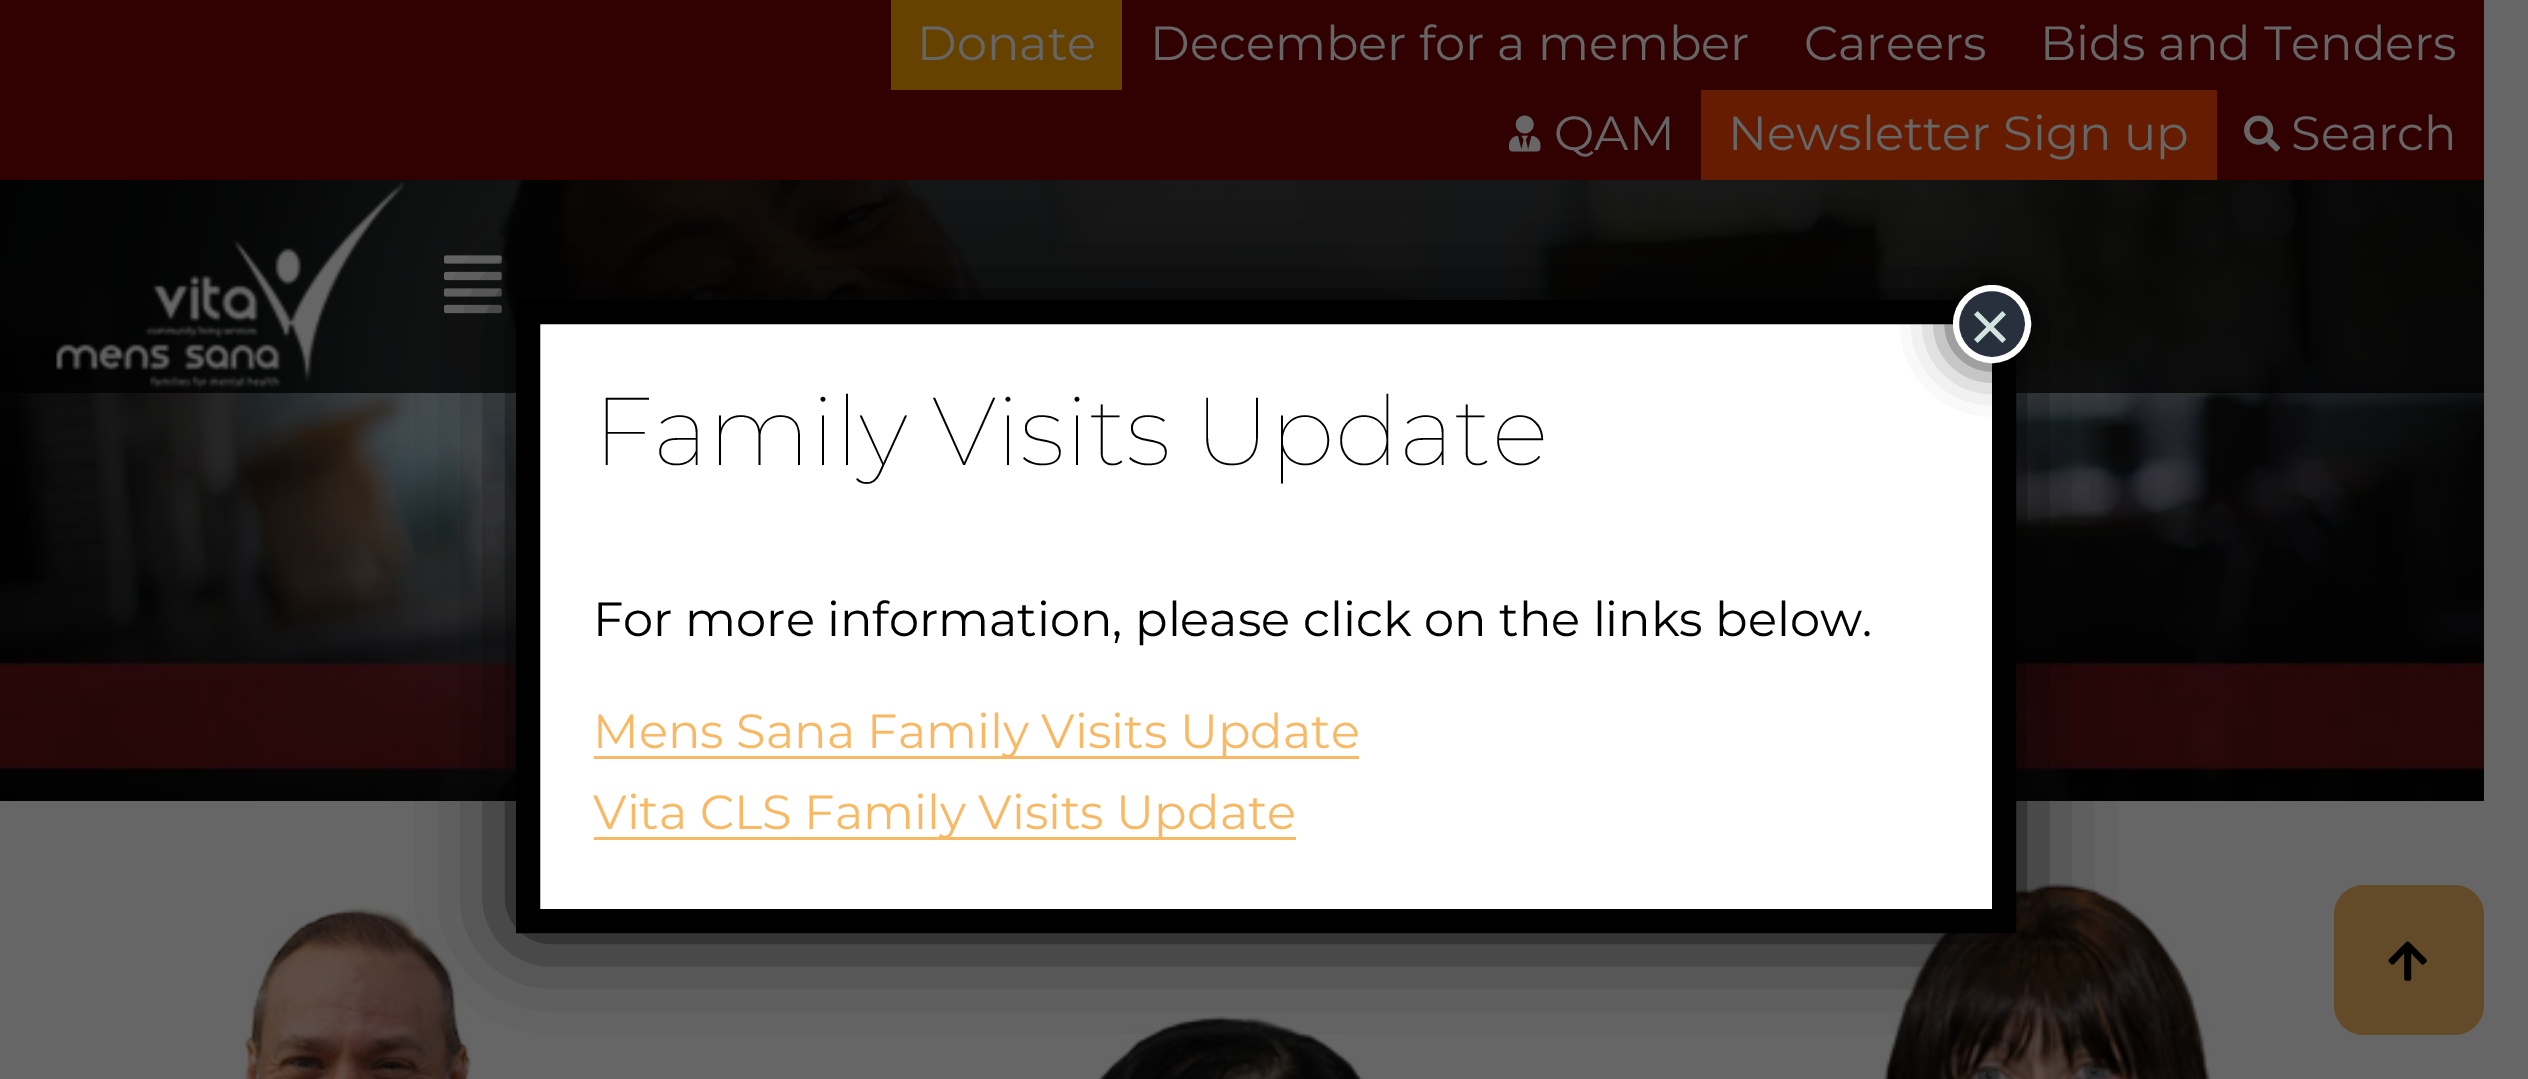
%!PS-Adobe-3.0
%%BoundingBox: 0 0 2528 1079
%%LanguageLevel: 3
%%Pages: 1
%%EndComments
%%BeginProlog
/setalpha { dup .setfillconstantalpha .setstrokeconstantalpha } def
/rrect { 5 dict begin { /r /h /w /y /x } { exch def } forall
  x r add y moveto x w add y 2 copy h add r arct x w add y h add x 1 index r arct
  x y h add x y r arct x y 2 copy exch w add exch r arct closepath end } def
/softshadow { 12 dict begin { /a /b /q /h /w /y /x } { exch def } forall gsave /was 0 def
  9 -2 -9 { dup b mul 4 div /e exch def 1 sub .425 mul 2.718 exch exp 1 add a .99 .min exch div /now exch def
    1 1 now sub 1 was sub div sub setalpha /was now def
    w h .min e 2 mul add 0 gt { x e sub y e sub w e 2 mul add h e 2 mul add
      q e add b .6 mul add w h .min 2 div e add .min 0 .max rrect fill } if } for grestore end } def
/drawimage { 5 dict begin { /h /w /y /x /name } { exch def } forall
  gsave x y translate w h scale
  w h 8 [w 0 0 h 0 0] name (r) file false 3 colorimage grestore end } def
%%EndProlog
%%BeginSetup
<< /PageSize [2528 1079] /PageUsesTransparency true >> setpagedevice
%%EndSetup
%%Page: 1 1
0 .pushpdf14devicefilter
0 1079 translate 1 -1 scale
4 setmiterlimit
0.4 setgray
0 0 2528 1079 rectfill
0.192 0 0 setrgbcolor
0 0 2484 180 rectfill
0.4 0.259 0 setrgbcolor
891 0 231 90 rectfill
(images/1.raw) 1509 115 32 37 drawimage
0.4 0.11 0 setrgbcolor
1701 90 516 90 rectfill
(images/2.raw) 2244 115 36 37 drawimage
(images/5.raw) 0 180 2484 621 drawimage
0.77 setalpha
0 setgray
0 180 2484 213 rectfill
1 setalpha
(images/3.raw) 56 182 349 207 drawimage
(images/4.raw) 444 255 58 59 drawimage
(images/6.raw) 242 906 232 173 drawimage
(images/7.raw) 1098 1016 265 63 drawimage
(images/8.raw) 1883 883 329 196 drawimage
0.388 0.29 0.157 setrgbcolor
2334 885 150 150 30 rrect fill
(images/9.raw) 2388 941 39 40 drawimage
0.008 setgray
516 300 1500 633 9 45 1 softshadow
1 setgray
540 324 1452 585 rectfill
0 setgray
24 setlinewidth
newpath 528 312 moveto 2004 312 lineto 2004 921 lineto 528 921 lineto closepath stroke
0.008 setgray
1950 282 84 84 42 22.5 0.75 softshadow
0.157 0.188 0.239 setrgbcolor
newpath 1992 324 36 0 360 arc closepath gsave fill grestore
1 setgray
6 setlinewidth
stroke
0.973 0.722 0.392 setrgbcolor
594 756 765 3 rectfill
594 837 702 3 rectfill
/Montserrat-Regular [48 0 0 -48 0 0] selectfont
0.4 setgray
917 60 moveto (Donate) show
1150 60 moveto (December for a member) show
1804 60 moveto (Careers) show
2040 60 moveto (Bids and Tenders) show
1554 150 moveto (QAM) show
1728 150 moveto (Newsletter Sign up) show
2291 150 moveto (Search) show
/LiberationSans-Regular [72 0 0 -72 0 0] selectfont
0.82 0.894 0.867 setrgbcolor
1969 351 moveto (×) show
/Montserrat-Thin [96 0 0 -96 0 0] selectfont
0 setgray
593 465 moveto (Family Visits Update) show
/Montserrat-Regular [48 0 0 -48 0 0] selectfont
593 636 moveto (For more information, please click on the links below.) show
0.973 0.722 0.392 setrgbcolor
593 748 moveto (Mens Sana Family Visits Update) show
593 829 moveto (Vita CLS Family Visits Update) show
.poppdf14devicefilter showpage
%%EOF
